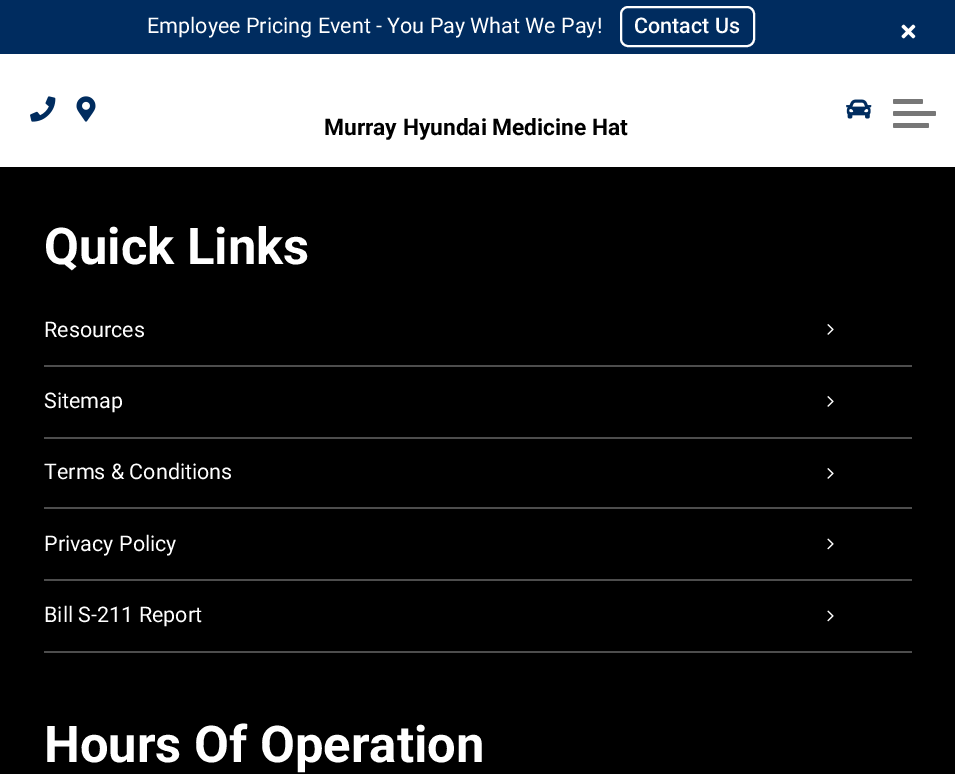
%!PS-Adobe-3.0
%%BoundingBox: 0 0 955 774
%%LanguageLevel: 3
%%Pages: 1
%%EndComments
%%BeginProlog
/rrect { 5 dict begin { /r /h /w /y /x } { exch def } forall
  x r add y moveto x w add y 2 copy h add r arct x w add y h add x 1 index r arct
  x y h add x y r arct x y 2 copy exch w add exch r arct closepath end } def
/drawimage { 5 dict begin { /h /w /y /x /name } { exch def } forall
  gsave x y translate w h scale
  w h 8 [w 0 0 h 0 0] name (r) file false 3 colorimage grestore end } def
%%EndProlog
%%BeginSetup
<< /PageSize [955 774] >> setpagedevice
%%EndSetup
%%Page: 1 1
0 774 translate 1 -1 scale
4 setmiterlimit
0 setgray
0 0 955 774 rectfill
0 0.173 0.373 setrgbcolor
0 0 955 54 rectfill
1 setgray
2 setlinewidth
621 7 133 39 7 rrect stroke
(images/1.raw) 901 24 15 15 drawimage
0 54 955 113 rectfill
(images/2.raw) 30 96 26 26 drawimage
(images/3.raw) 76 96 20 26 drawimage
(images/4.raw) 846 99 26 20 drawimage
0.467 setgray
893 111 43 5 1.5 rrect fill
893 99 30 5 1.5 rrect fill
893 123 36 5 1.5 rrect fill
0.302 setgray
44 365 868 2 rectfill
(images/5.raw) 827 324 7 11 drawimage
44 437 868 2 rectfill
(images/5.raw) 827 396 7 11 drawimage
44 507 868 2 rectfill
(images/5.raw) 827 468 7 11 drawimage
44 579 868 2 rectfill
(images/6.raw) 827 538 7 12 drawimage
44 651 868 2 rectfill
(images/6.raw) 827 610 7 12 drawimage
/Roboto-Regular [21.5 0 0 -21.5 0 0] selectfont
1 setgray
147 33 moveto (Employee Pricing Event - You Pay What We Pay!) show
/Roboto-Medium [21.5 0 0 -21.5 0 0] selectfont
634 33 moveto (Contact Us) show
/Roboto-Bold [22.75 0 0 -22.75 0 0] selectfont
0 setgray
324 135 moveto (Murray Hyundai Medicine Hat) show
/Roboto-Bold [50.75 0 0 -50.75 0 0] selectfont
1 setgray
44 264 moveto (Quick Links) show
/Roboto-Regular [21.5 0 0 -21.5 0 0] selectfont
44 337 moveto (Resources) show
44 408 moveto (Sitemap) show
44 479 moveto (Terms & Conditions) show
44 551 moveto (Privacy Policy) show
44 622 moveto (Bill S-211 Report) show
/Roboto-Bold [50.75 0 0 -50.75 0 0] selectfont
44 762 moveto (Hours Of Operation) show
showpage
%%EOF
